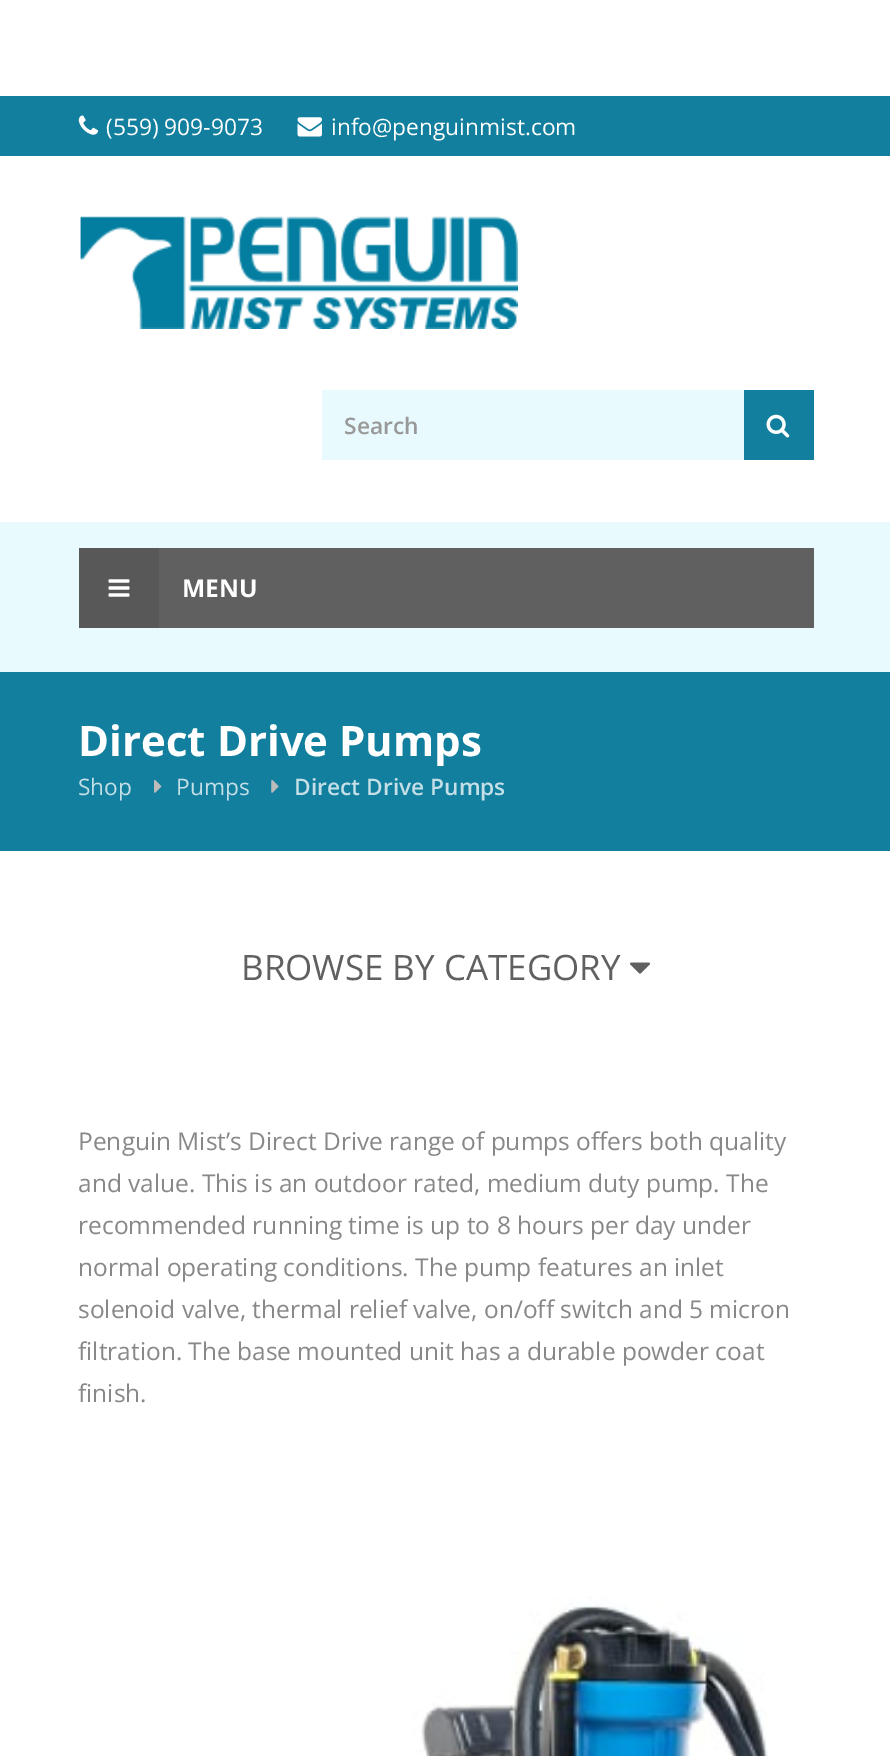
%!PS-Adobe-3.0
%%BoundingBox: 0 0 890 1756
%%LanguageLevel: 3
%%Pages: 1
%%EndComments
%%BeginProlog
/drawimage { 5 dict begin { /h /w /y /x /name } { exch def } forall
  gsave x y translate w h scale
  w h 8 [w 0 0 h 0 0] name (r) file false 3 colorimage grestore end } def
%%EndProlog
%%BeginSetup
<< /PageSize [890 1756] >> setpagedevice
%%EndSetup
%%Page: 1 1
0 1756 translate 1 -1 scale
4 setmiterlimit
1 setgray
0 0 890 1756 rectfill
0.075 0.498 0.62 setrgbcolor
0 96 890 60 rectfill
(images/1.raw) 78 115 20 20 drawimage
(images/2.raw) 297 117 25 20 drawimage
(images/3.raw) 80 216 438 113 drawimage
0.914 0.98 1 setrgbcolor
322 390 422 70 rectfill
0.075 0.498 0.62 setrgbcolor
744 390 70 70 rectfill
(images/4.raw) 766 414 24 24 drawimage
0.914 0.98 1 setrgbcolor
0 522 890 150 rectfill
0.376 setgray
159 548 655 80 rectfill
0.345 setgray
79 548 80 80 rectfill
(images/5.raw) 108 579 22 18 drawimage
0.075 0.498 0.62 setrgbcolor
0 672 890 179 rectfill
(images/6.raw) 154 779 8 14 drawimage
(images/7.raw) 271 779 8 14 drawimage
(images/8.raw) 630 962 20 12 drawimage
(images/9.raw) 413 1596 355 160 drawimage
/OpenSans-Regular [22.75 0 0 -22.75 0 0] selectfont
1 setgray
106 135 moveto (\(559\) 909-9073) show
331 135 moveto (info@penguinmist.com) show
/OpenSans-SemiBold [22.75 0 0 -22.75 0 0] selectfont
0.6 setgray
344 434 moveto (Search) show
/OpenSans-Bold [24.5 0 0 -24.5 0 0] selectfont
1 setgray
182 597 moveto (MENU) show
/OpenSans-Bold [42 0 0 -42 0 0] selectfont
78 756 moveto (Direct Drive Pumps) show
/OpenSans-Regular [22.75 0 0 -22.75 0 0] selectfont
0.769 0.875 0.906 setrgbcolor
78 795 moveto (Shop) show
176 795 moveto (Pumps) show
/OpenSans-SemiBold [22.75 0 0 -22.75 0 0] selectfont
294 795 moveto (Direct Drive Pumps) show
/OpenSans-Regular [35 0 0 -35 0 0] selectfont
0.376 setgray
241 980 moveto (BROWSE BY CATEGORY) show
/OpenSans-Regular [24.5 0 0 -24.5 0 0] selectfont
0.533 setgray
78 1150 moveto (Penguin Mist’s Direct Drive range of pumps offers both quality) show
78 1192 moveto (and value. This is an outdoor rated, medium duty pump. The) show
78 1234 moveto (recommended running time is up to 8 hours per day under) show
78 1276 moveto (normal operating conditions. The pump features an inlet) show
78 1318 moveto (solenoid valve, thermal relief valve, on/off switch and 5 micron) show
78 1360 moveto (filtration. The base mounted unit has a durable powder coat) show
78 1402 moveto (finish.) show
showpage
%%EOF
